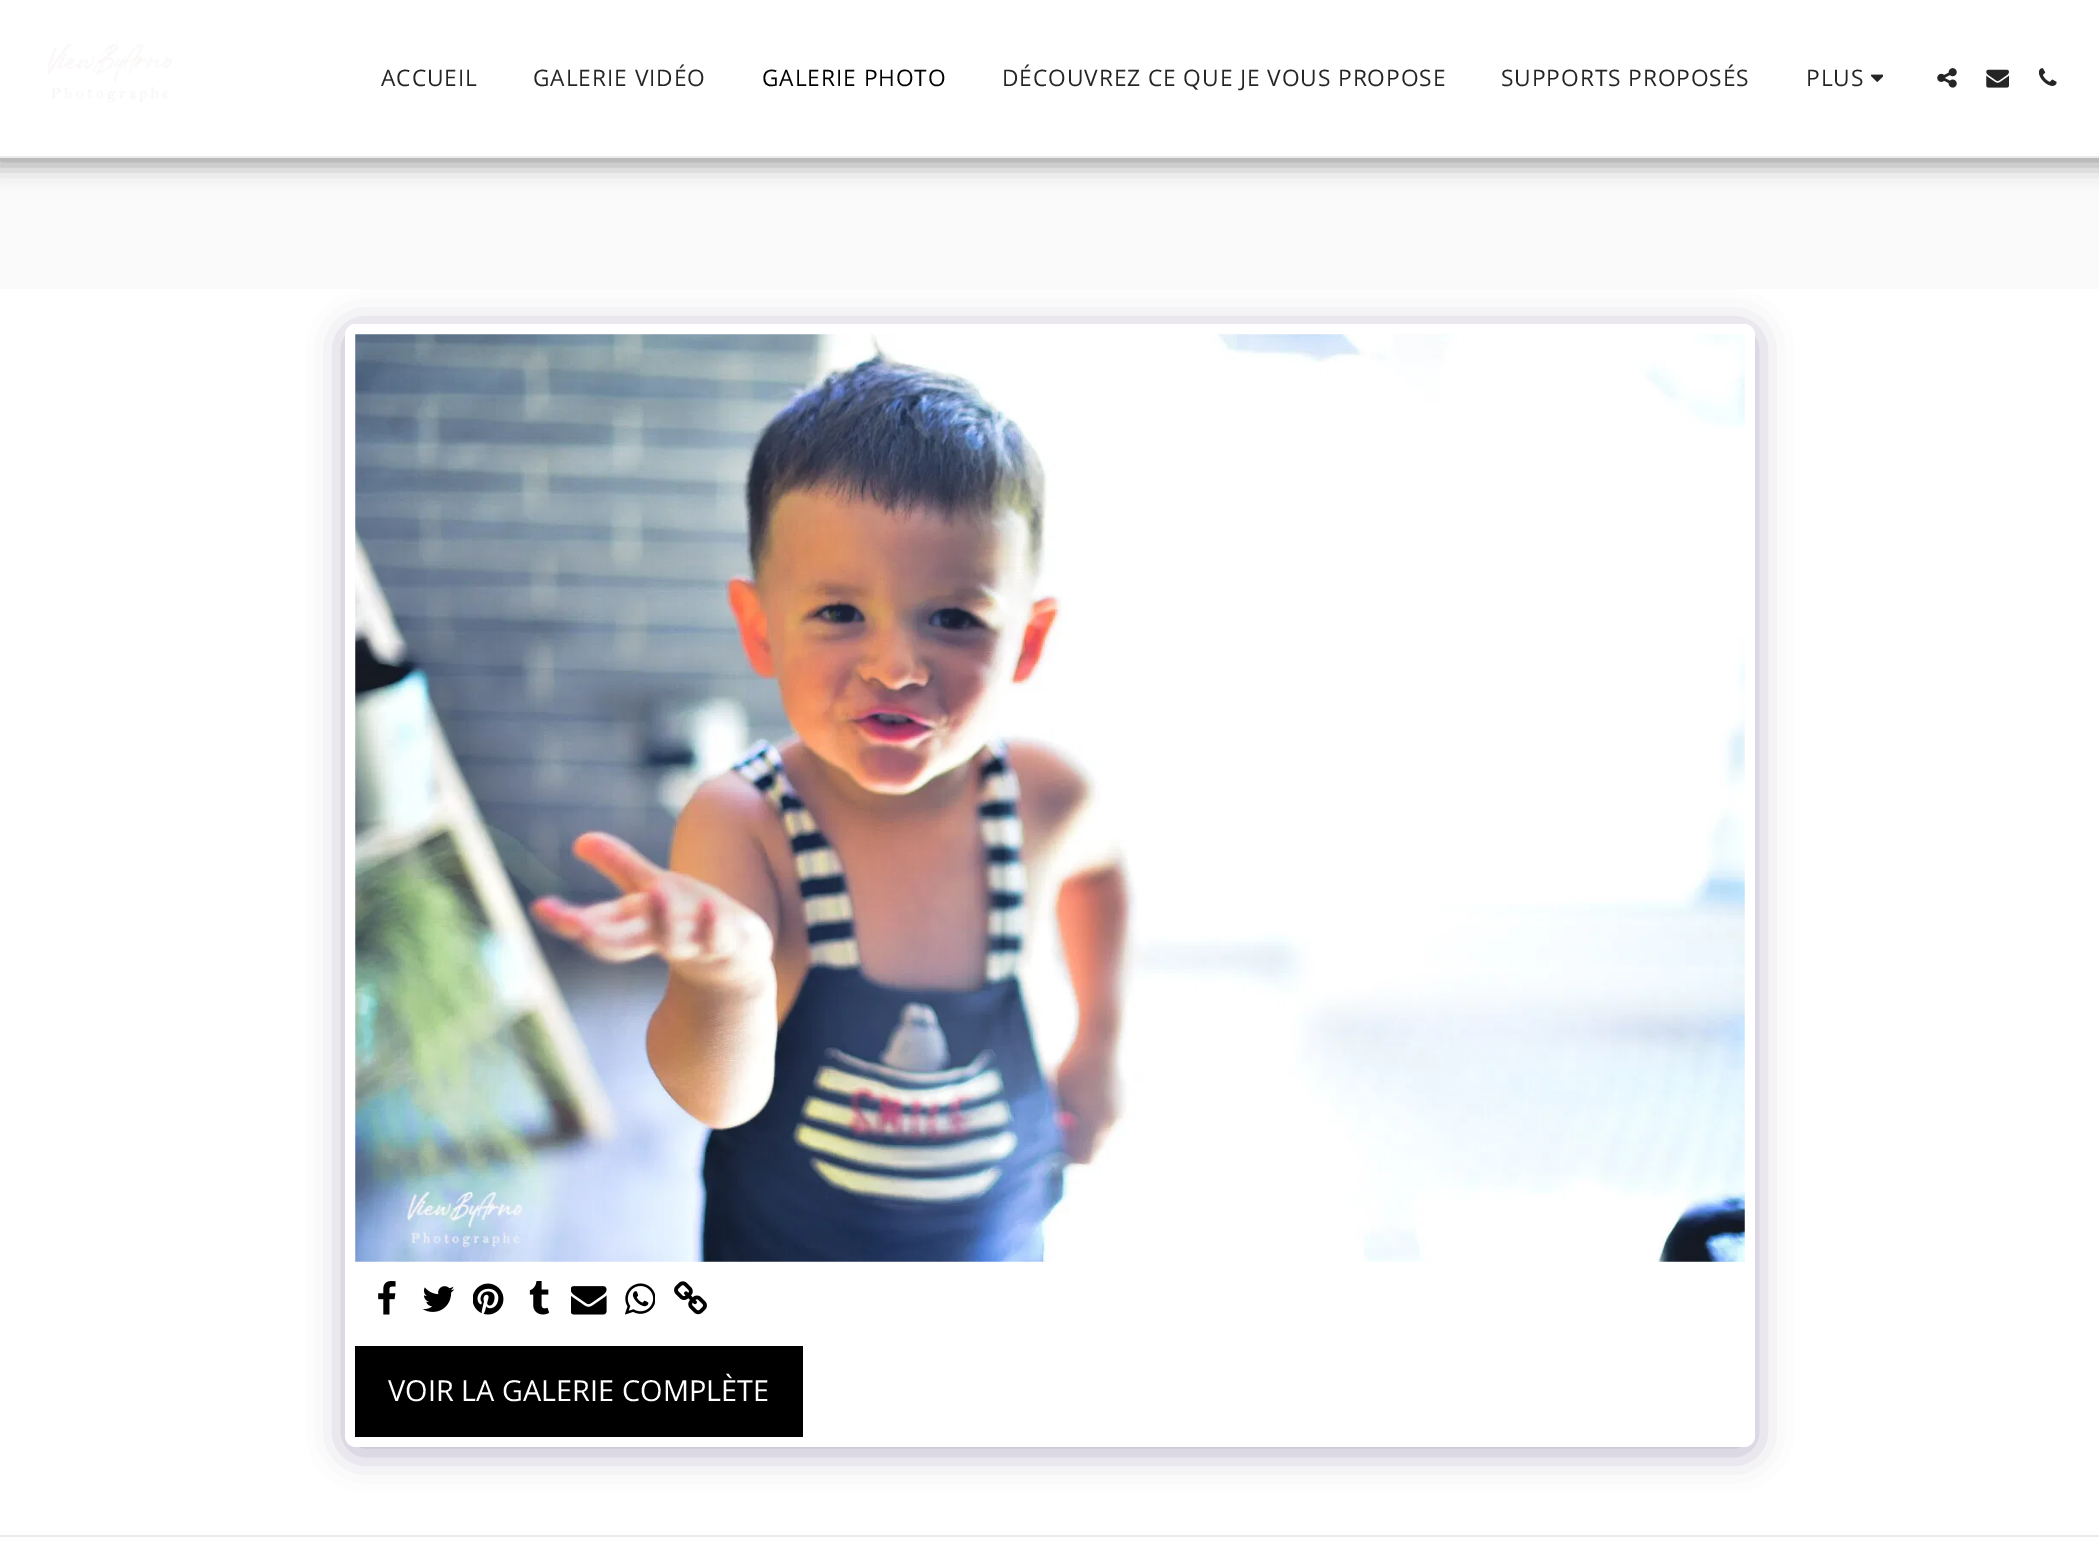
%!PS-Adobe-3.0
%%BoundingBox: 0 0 2099 1544
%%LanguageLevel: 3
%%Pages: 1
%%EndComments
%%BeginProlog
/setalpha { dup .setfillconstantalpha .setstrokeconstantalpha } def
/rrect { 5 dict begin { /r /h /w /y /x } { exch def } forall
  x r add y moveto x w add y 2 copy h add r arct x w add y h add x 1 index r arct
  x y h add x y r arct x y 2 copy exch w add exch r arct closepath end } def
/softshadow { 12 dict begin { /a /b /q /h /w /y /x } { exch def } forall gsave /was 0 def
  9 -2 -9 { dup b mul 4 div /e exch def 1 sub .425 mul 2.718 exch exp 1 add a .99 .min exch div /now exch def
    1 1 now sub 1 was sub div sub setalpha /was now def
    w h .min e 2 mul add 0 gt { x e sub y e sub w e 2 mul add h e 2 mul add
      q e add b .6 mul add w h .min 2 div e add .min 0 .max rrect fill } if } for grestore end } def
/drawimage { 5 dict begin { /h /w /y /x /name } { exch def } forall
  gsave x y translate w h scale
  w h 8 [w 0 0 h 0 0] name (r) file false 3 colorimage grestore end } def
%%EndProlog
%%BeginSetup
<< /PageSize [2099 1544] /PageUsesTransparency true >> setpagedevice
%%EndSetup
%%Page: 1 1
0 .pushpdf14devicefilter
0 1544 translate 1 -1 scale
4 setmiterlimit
1 setgray
0 0 2099 1544 rectfill
0.98 setgray
0 158 2099 131 rectfill
0 setgray
-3 0 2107 165 0 10.5 0.35 softshadow
1 setgray
0 0 2099 156 rectfill
0.922 setgray
0 156 2099 2 rectfill
(images/1.raw) 48 44 124 58 drawimage
(images/2.raw) 1871 74 12 8 drawimage
(images/3.raw) 1937 68 20 20 drawimage
(images/4.raw) 1986 69 23 19 drawimage
(images/5.raw) 2039 68 18 18 drawimage
0.302 0.247 0.478 setrgbcolor
345 329 1410 1124 11 17.5 0.4 softshadow
1 setgray
345 324 1410 1123 11 rrect fill
(images/6.raw) 355 334 1390 928 drawimage
(images/7.raw) 378 1281 18 34 drawimage
(images/8.raw) 422 1286 33 26 drawimage
(images/9.raw) 473 1283 31 32 drawimage
(images/10.raw) 529 1281 21 34 drawimage
(images/11.raw) 571 1286 36 29 drawimage
(images/12.raw) 625 1283 30 32 drawimage
(images/13.raw) 674 1281 33 34 drawimage
0 setgray
355 1346 448 91 rectfill
0.922 setgray
0 1535 2099 2 rectfill
/OpenSans-Regular [22.75 0 0 -22.75 0 0] selectfont
0.145 setgray
381 86 moveto 0.9 0 (ACCUEIL) ashow
533 86 moveto 0.9 0 (GALERIE VIDÉO) ashow
0 setgray
762 86 moveto 0.9 0 (GALERIE PHOTO) ashow
0.145 setgray
1002 86 moveto 0.9 0 (DÉCOUVREZ CE QUE JE VOUS PROPOSE) ashow
1501 86 moveto 0.9 0 (SUPPORTS PROPOSÉS) ashow
1806 86 moveto 0.9 0 (PLUS) ashow
/OpenSans-Regular [28.9 0 0 -28.9 0 0] selectfont
1 setgray
388 1401 moveto (VOIR LA GALERIE COMPLÈTE) show
.poppdf14devicefilter showpage
%%EOF
